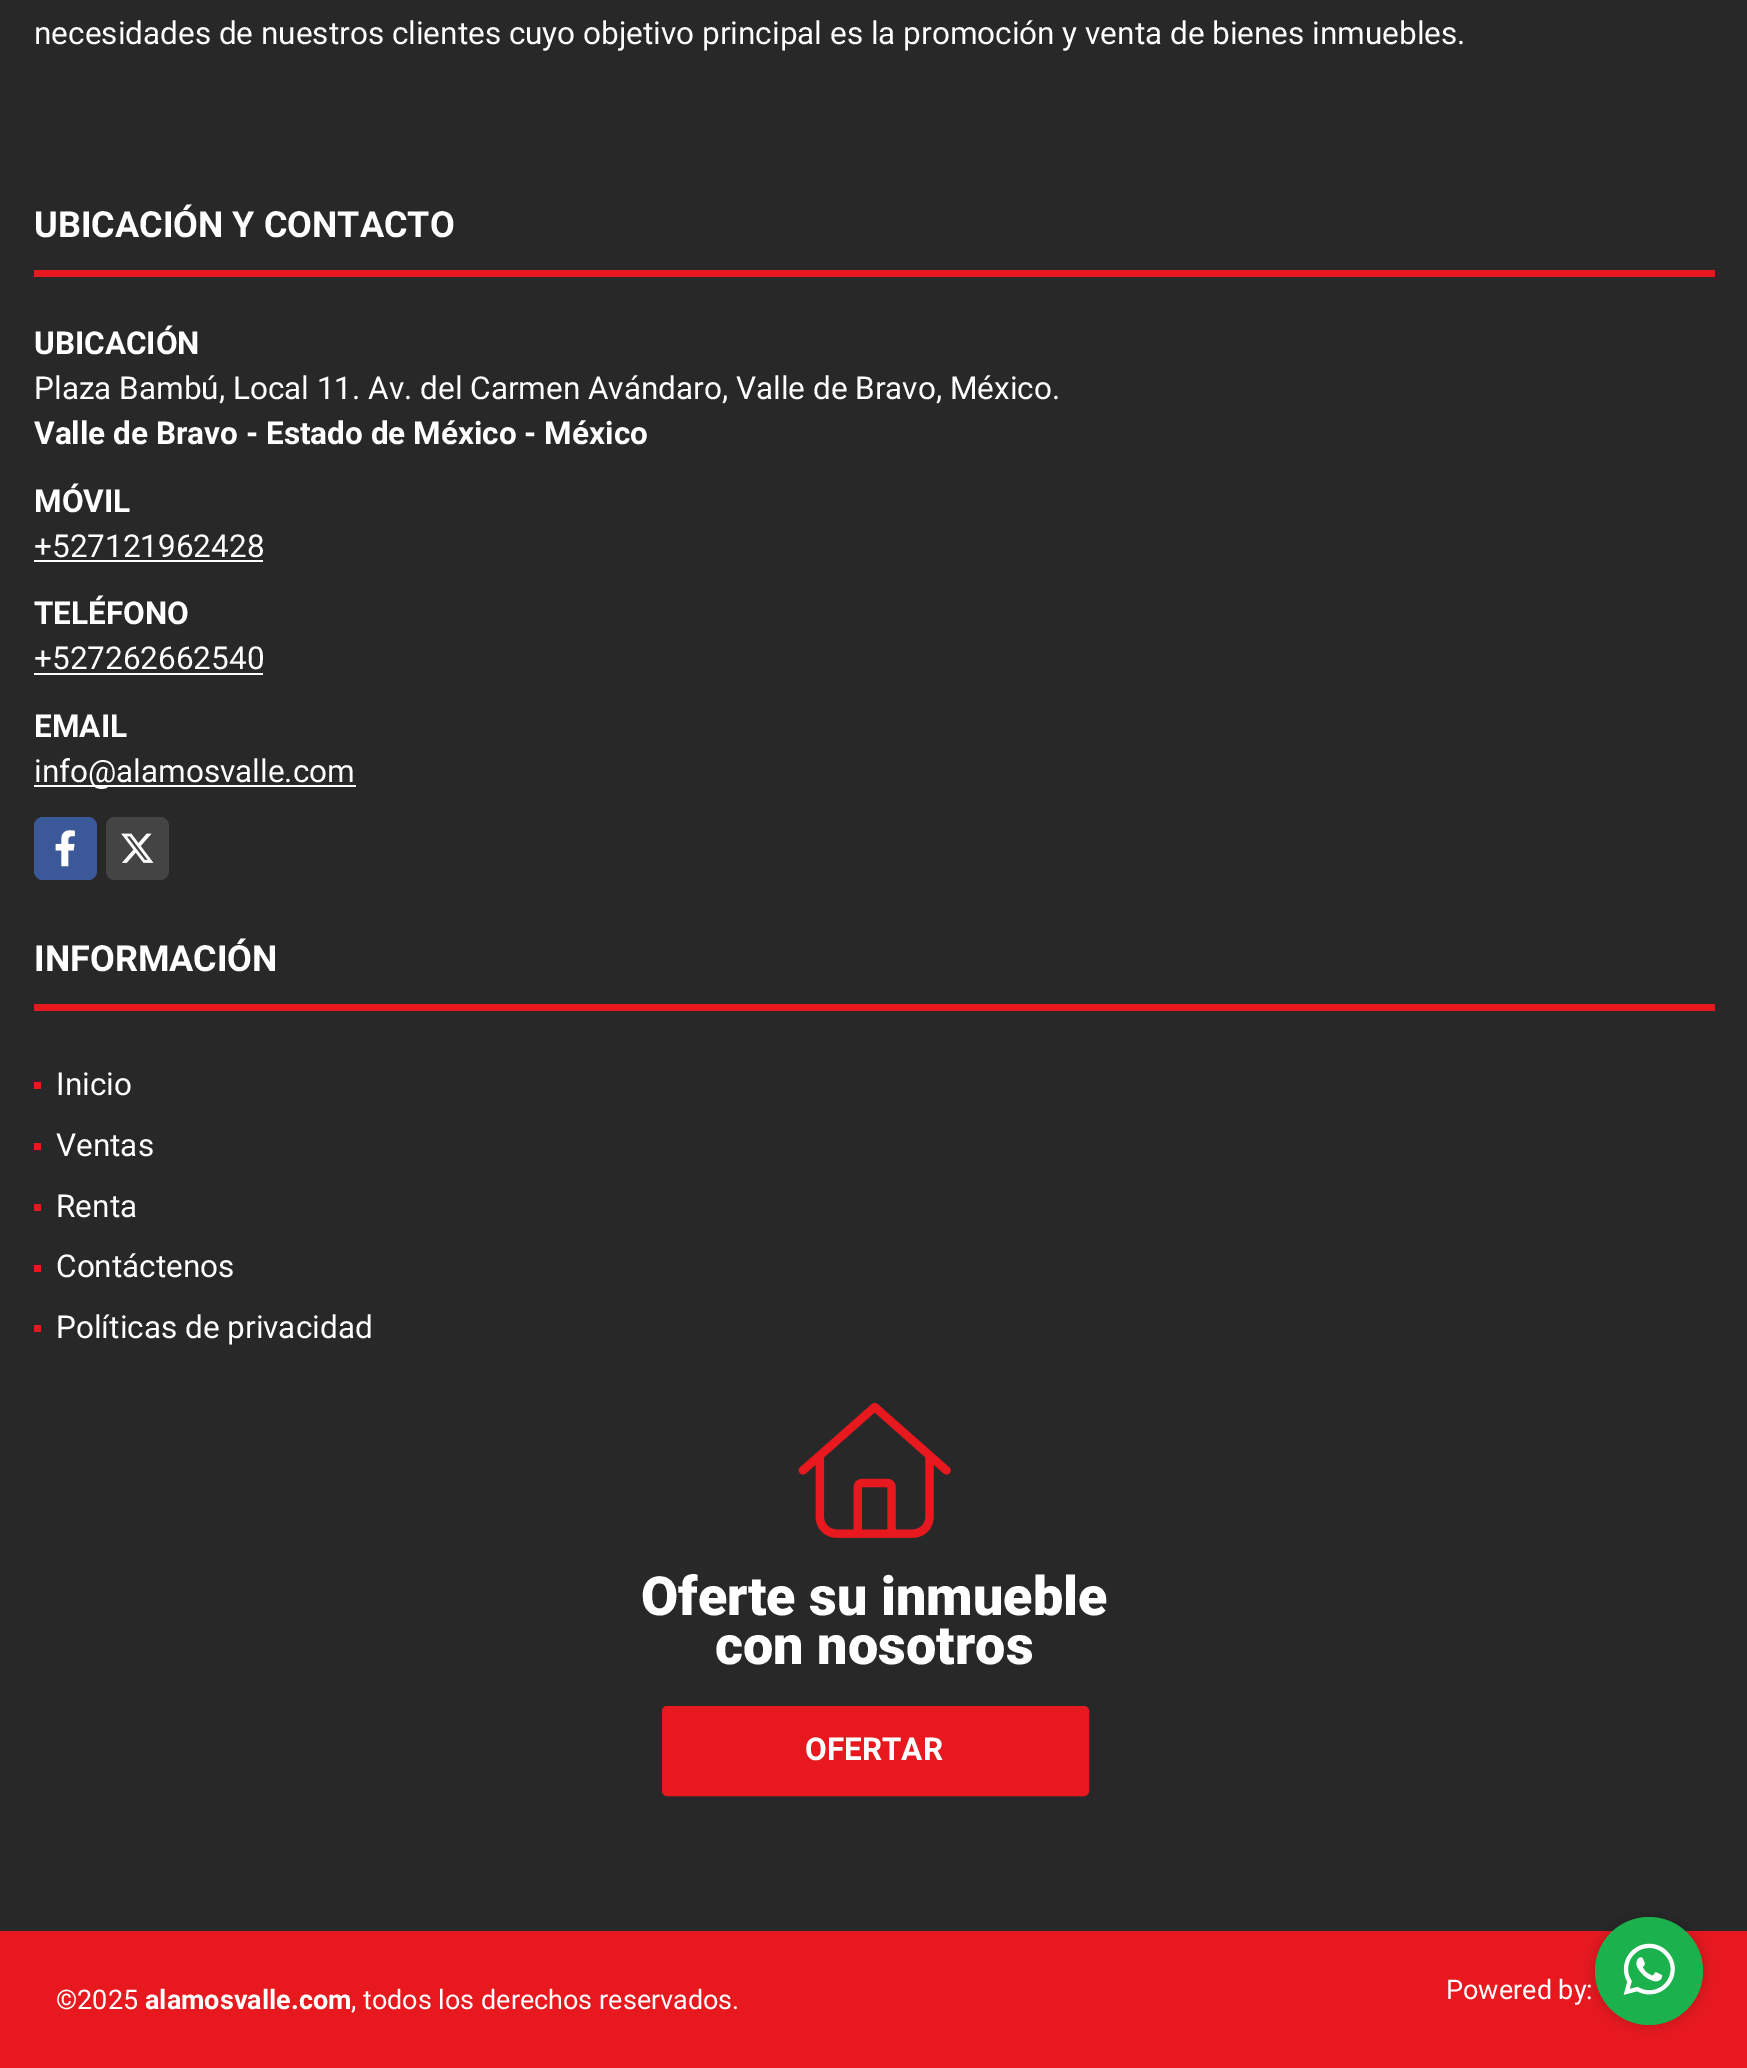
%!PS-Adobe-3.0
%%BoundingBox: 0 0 1747 2068
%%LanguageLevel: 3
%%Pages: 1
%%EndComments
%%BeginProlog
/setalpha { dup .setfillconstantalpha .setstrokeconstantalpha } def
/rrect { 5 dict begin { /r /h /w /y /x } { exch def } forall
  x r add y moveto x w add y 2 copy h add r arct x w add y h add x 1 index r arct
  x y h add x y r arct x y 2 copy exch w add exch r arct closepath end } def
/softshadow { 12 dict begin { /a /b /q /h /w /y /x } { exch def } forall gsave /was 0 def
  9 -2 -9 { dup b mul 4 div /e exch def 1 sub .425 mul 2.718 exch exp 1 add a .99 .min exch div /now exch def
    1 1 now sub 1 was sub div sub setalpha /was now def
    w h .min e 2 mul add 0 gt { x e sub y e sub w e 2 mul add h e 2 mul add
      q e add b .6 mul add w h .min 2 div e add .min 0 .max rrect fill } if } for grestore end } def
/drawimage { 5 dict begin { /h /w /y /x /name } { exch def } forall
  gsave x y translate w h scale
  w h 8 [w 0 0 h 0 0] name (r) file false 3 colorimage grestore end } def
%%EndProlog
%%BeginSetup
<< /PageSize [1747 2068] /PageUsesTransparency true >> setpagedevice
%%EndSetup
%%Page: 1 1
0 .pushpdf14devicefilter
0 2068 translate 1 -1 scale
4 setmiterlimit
0.157 setgray
0 0 1747 2068 rectfill
0.906 0.098 0.122 setrgbcolor
34 270 1681 7 rectfill
1 setgray
34 560 229 2 rectfill
34 673 229 2 rectfill
34 785 322 2 rectfill
0.231 0.349 0.596 setrgbcolor
34 817 63 63 9 rrect fill
(images/1.raw) 55 830 20 37 drawimage
0.267 setgray
106 817 63 63 9 rrect fill
(images/2.raw) 121 833 33 30 drawimage
0.906 0.098 0.122 setrgbcolor
34 1004 1681 7 rectfill
34 1082 7 7 rectfill
34 1143 7 7 rectfill
34 1204 7 7 rectfill
34 1265 7 7 rectfill
34 1325 7 7 rectfill
(images/3.raw) 798 1402 153 136 drawimage
663 1707 425 88 4 rrect gsave fill grestore
2 setlinewidth
stroke
0 1931 1747 137 rectfill
0 setgray
1595 1917 108 108 54 7 0.2 softshadow
0.106 0.698 0.306 setrgbcolor
newpath 1649 1971 54 0 360 arc closepath fill
(images/4.raw) 1623 1943 52 52 drawimage
/Roboto-Regular [31.5 0 0 -31.5 0 0] selectfont
1 setgray
34 44 moveto (necesidades de nuestros clientes cuyo objetivo principal es la promoción y venta de bienes inmuebles.) show
/Roboto-Bold [36 0 0 -36 0 0] selectfont
34 237 moveto (UBICACIÓN Y CONTACTO) show
/Roboto-Bold [31.5 0 0 -31.5 0 0] selectfont
34 354 moveto (UBICACIÓN) show
/Roboto-Regular [31.5 0 0 -31.5 0 0] selectfont
34 399 moveto (Plaza Bambú, Local 11. Av. del Carmen Avándaro, Valle de Bravo, México.) show
/Roboto-Bold [31.5 0 0 -31.5 0 0] selectfont
34 444 moveto (Valle de Bravo - Estado de México - México) show
34 512 moveto (MÓVIL) show
/Roboto-Regular [31.5 0 0 -31.5 0 0] selectfont
34 557 moveto (+527121962428) show
/Roboto-Bold [31.5 0 0 -31.5 0 0] selectfont
34 624 moveto (TELÉFONO) show
/Roboto-Regular [31.5 0 0 -31.5 0 0] selectfont
34 669 moveto (+527262662540) show
/Roboto-Bold [31.5 0 0 -31.5 0 0] selectfont
34 737 moveto (EMAIL) show
/Roboto-Regular [31.5 0 0 -31.5 0 0] selectfont
34 782 moveto (info@alamosvalle.com) show
/Roboto-Bold [36 0 0 -36 0 0] selectfont
34 971 moveto (INFORMACIÓN) show
/Roboto-Regular [31.5 0 0 -31.5 0 0] selectfont
56 1095 moveto (Inicio) show
56 1156 moveto (Ventas) show
56 1217 moveto (Renta) show
56 1277 moveto (Contáctenos) show
56 1338 moveto (Políticas de privacidad) show
/Roboto-Black [54 0 0 -54 0 0] selectfont
641 1615 moveto (Oferte su inmueble) show
715 1664 moveto (con nosotros) show
/Roboto-Bold [31.5 0 0 -31.5 0 0] selectfont
805 1760 moveto (OFERTAR) show
/Roboto-Regular [27 0 0 -27 0 0] selectfont
56 2009 moveto (©2025) show
/Roboto-Bold [27 0 0 -27 0 0] selectfont
145 2009 moveto (alamosvalle.com) show
/Roboto-Regular [27 0 0 -27 0 0] selectfont
351 2009 moveto (, todos los derechos reservados.) show
1446 1999 moveto (Powered by:) show
.poppdf14devicefilter showpage
%%EOF
